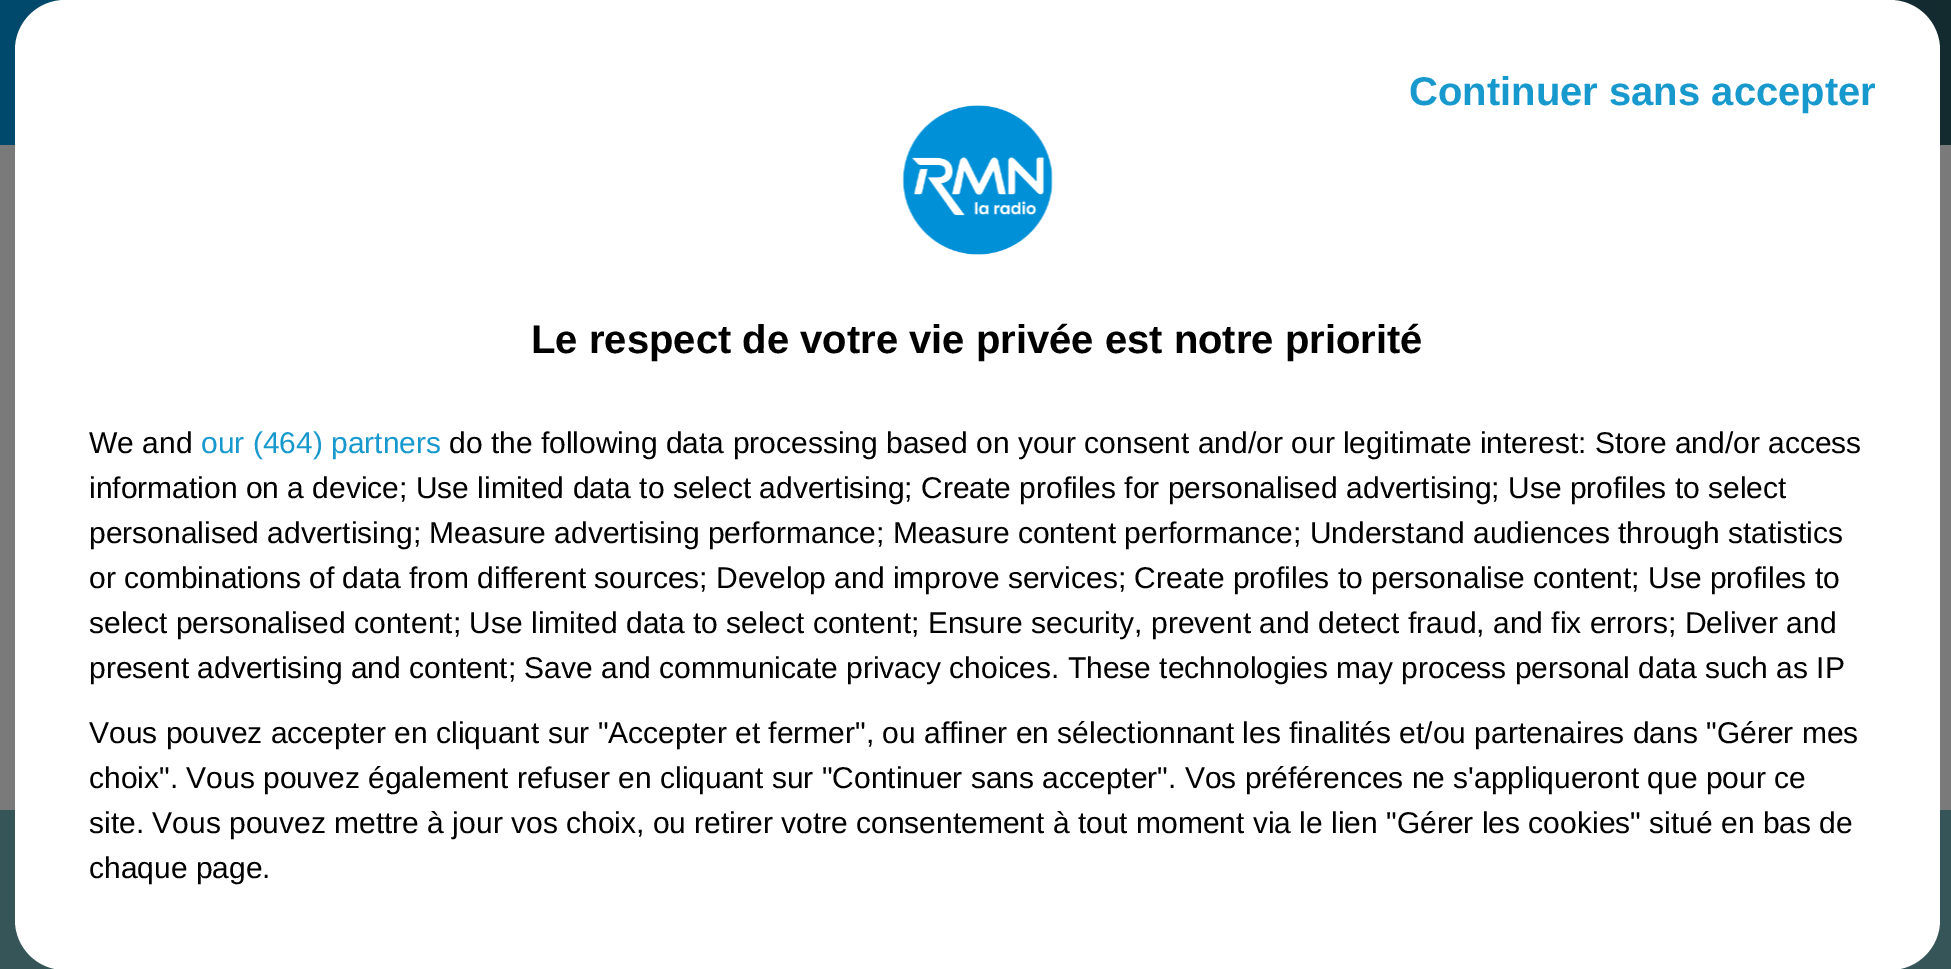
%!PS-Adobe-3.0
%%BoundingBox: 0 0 1951 969
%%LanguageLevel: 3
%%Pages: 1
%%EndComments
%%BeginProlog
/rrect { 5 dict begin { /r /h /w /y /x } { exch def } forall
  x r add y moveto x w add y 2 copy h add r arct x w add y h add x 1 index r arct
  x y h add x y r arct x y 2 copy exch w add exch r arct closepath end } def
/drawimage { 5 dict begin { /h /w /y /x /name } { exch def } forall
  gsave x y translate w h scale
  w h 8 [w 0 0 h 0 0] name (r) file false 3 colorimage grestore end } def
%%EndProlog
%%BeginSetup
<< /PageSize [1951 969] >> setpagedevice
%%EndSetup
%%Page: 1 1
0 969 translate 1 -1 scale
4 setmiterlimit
0.482 0.478 0.478 setrgbcolor
0 0 1951 969 rectfill
gsave newpath 0 0 moveto 1951 0 lineto 1951 145 lineto 0 145 lineto closepath clip newpath
<< /ShadingType 2 /ColorSpace /DeviceRGB /Coords [0 73 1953 72] /Extend [true true] /Function << /FunctionType 3 /Domain [0 1] /Functions [<< /FunctionType 2 /Domain [0 1] /C0 [0 0.282 0.424] /C1 [0 0.282 0.424] /N 1 >> << /FunctionType 2 /Domain [0 1] /C0 [0 0.282 0.424] /C1 [0.071 0.235 0.282] /N 1 >> << /FunctionType 2 /Domain [0 1] /C0 [0.071 0.235 0.282] /C1 [0.078 0.165 0.184] /N 1 >>] /Bounds [0.25 0.8] /Encode [0 1 0 1 0 1] >> >> shfill grestore
0.208 0.333 0.345 setrgbcolor
0 810 1951 159 rectfill
1 setgray
15 0 1925 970 50 rrect fill
(images/1.raw) 902 105 151 150 drawimage
/LiberationSans-Bold [40 0 0 -40 0 0] selectfont
0.094 0.6 0.804 setrgbcolor
1409 105 moveto (Continuer sans accepter) show
0 setgray
531 353 moveto (Le respect de votre vie privée est notre priorité) show
/LiberationSans-Regular [30 0 0 -30 0 0] selectfont
89 453 moveto (We and) show
0.094 0.6 0.804 setrgbcolor
201 453 moveto (our \(464\) partners) show
0 setgray
449 453 moveto (do the following data processing based on your consent and/or our legitimate interest: Store and/or access) show
89 498 moveto (information on a device; Use limited data to select advertising; Create profiles for personalised advertising; Use profiles to select) show
89 543 moveto (personalised advertising; Measure advertising performance; Measure content performance; Understand audiences through statistics) show
89 588 moveto (or combinations of data from different sources; Develop and improve services; Create profiles to personalise content; Use profiles to) show
89 633 moveto (select personalised content; Use limited data to select content; Ensure security, prevent and detect fraud, and fix errors; Deliver and) show
89 678 moveto (present advertising and content; Save and communicate privacy choices. These technologies may process personal data such as IP) show
89 743 moveto (Vous pouvez accepter en cliquant sur "Accepter et fermer", ou affiner en sélectionnant les finalités et/ou partenaires dans "Gérer mes) show
89 788 moveto (choix". Vous pouvez également refuser en cliquant sur "Continuer sans accepter". Vos préférences ne s'appliqueront que pour ce) show
89 833 moveto (site. Vous pouvez mettre à jour vos choix, ou retirer votre consentement à tout moment via le lien "Gérer les cookies" situé en bas de) show
89 878 moveto (chaque page.) show
showpage
%%EOF
